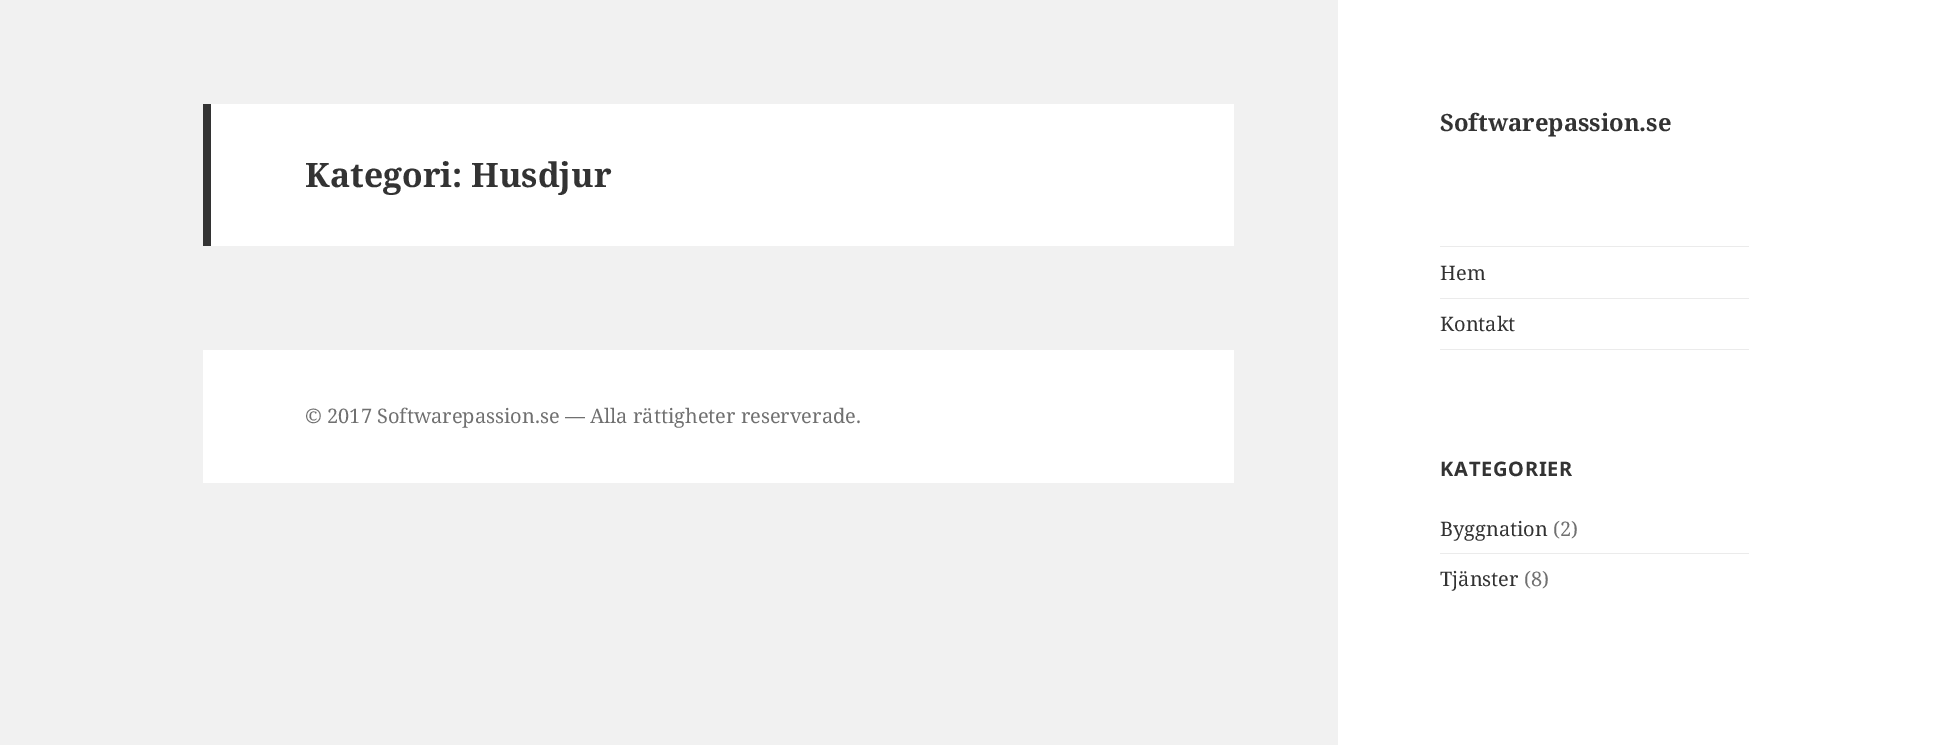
%!PS-Adobe-3.0
%%BoundingBox: 0 0 1951 745
%%LanguageLevel: 3
%%Pages: 1
%%EndComments
%%BeginProlog
%%EndProlog
%%BeginSetup
<< /PageSize [1951 745] >> setpagedevice
%%EndSetup
%%Page: 1 1
0 745 translate 1 -1 scale
4 setmiterlimit
0.945 setgray
0 0 1951 745 rectfill
1 setgray
1338 0 613 745 rectfill
211 104 1023 142 rectfill
0.2 setgray
203 104 8 142 rectfill
0.922 setgray
1440 246 309 1 rectfill
1440 349 309 1 rectfill
1440 298 309 1 rectfill
1440 553 309 1 rectfill
1 setgray
203 350 1031 133 rectfill
/NotoSerif-Bold [33.75 0 0 -33.75 0 0] selectfont
0.2 setgray
305 187 moveto (Kategori: Husdjur) show
/NotoSerif-Bold [23.75 0 0 -23.75 0 0] selectfont
1440 131 moveto (Softwarepassion.se) show
/NotoSerif-Regular [20 0 0 -20 0 0] selectfont
1440 280 moveto (Hem) show
1440 331 moveto (Kontakt) show
/NotoSans-Bold [20 0 0 -20 0 0] selectfont
1440 476 moveto 0.75 0 (KATEGORIER) ashow
/NotoSerif-Regular [20 0 0 -20 0 0] selectfont
1440 536 moveto (Byggnation) show
0.439 setgray
1553 536 moveto (\(2\)) show
0.2 setgray
1440 586 moveto (Tjänster) show
0.439 setgray
1524 586 moveto (\(8\)) show
305 423 moveto (© 2017 Softwarepassion.se — Alla rättigheter reserverade.) show
showpage
%%EOF
